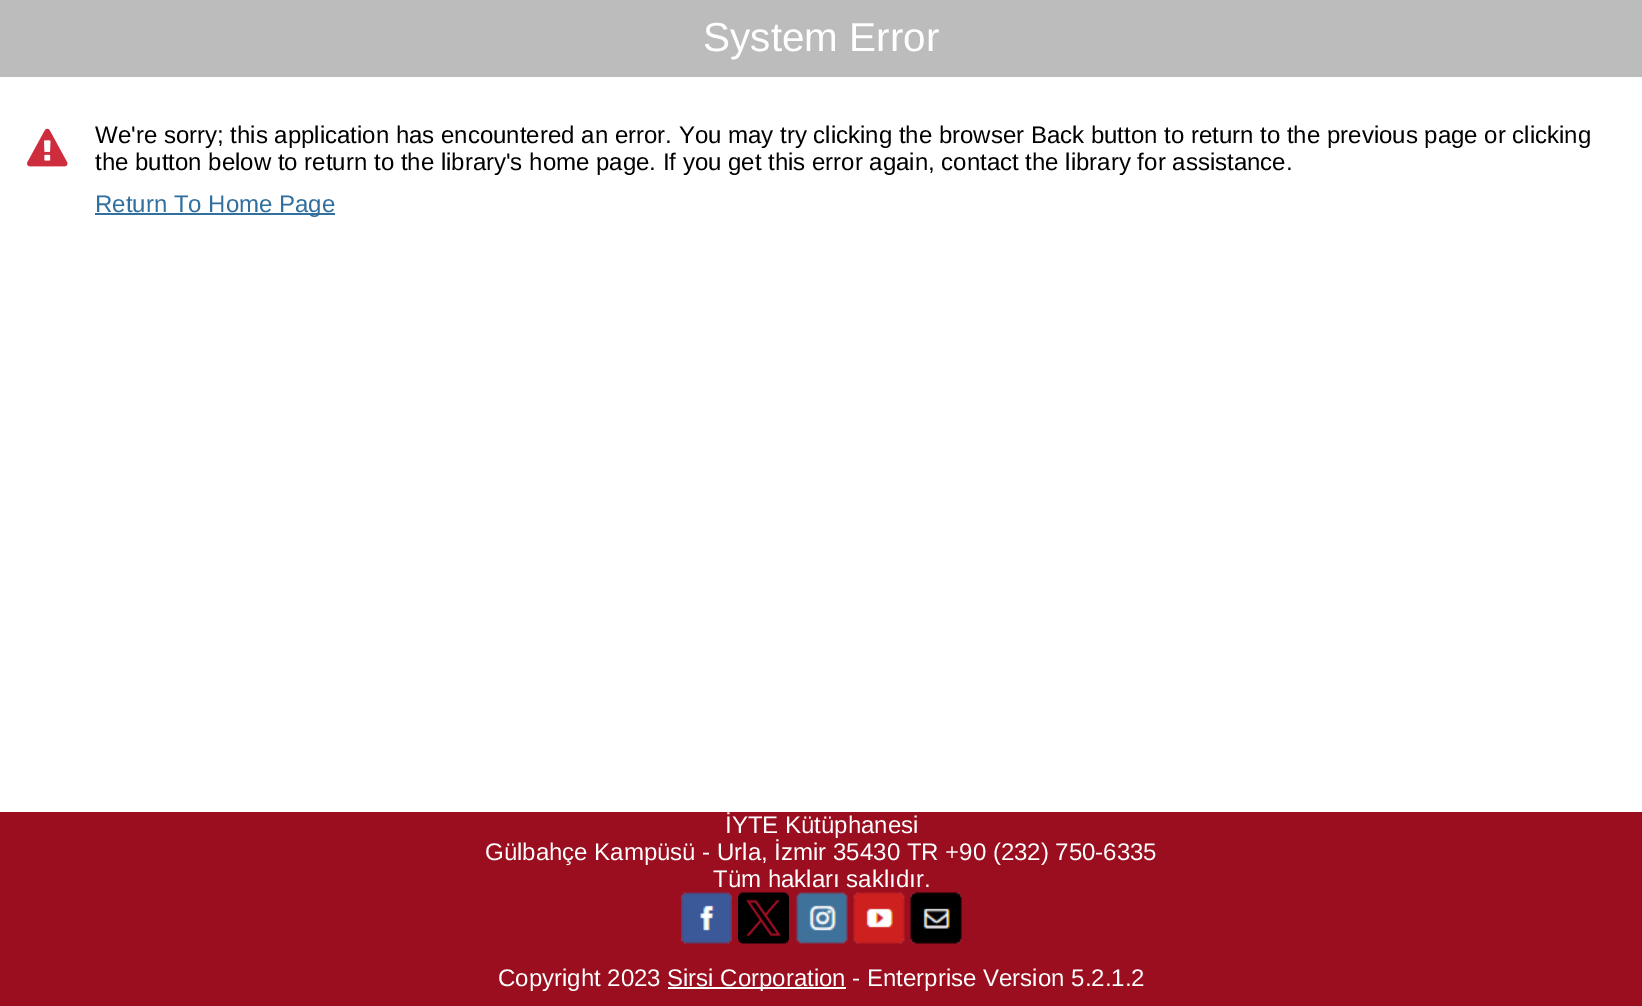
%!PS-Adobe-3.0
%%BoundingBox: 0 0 1642 1006
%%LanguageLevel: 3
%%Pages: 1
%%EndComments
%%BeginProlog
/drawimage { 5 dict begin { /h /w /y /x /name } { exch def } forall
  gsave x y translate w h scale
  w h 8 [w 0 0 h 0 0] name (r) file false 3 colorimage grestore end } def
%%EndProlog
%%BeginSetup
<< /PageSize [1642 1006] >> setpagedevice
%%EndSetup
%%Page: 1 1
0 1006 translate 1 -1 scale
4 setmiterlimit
0.737 setgray
0 0 1642 1006 rectfill
1 setgray
0 77 1642 735 rectfill
(images/1.raw) 27 128 41 39 drawimage
0.192 0.435 0.62 setrgbcolor
95 213 240 2 rectfill
0.604 0.055 0.125 setrgbcolor
0 812 1642 194 rectfill
(images/2.raw) 681 892 51 52 drawimage
(images/3.raw) 738 892 51 52 drawimage
(images/4.raw) 796 892 52 52 drawimage
(images/5.raw) 853 892 52 52 drawimage
(images/6.raw) 910 892 52 52 drawimage
1 setgray
668 987 178 2 rectfill
/LiberationSans-Regular [40.5 0 0 -40.5 0 0] selectfont
703 51 moveto (System Error) show
/LiberationSans-Regular [24 0 0 -24 0 0] selectfont
0 setgray
95 143 moveto (We're sorry; this application has encountered an error. You may try clicking the browser Back button to return to the previous page or clicking) show
95 170 moveto (the button below to return to the library's home page. If you get this error again, contact the library for assistance.) show
0.192 0.435 0.62 setrgbcolor
95 212 moveto (Return To Home Page) show
1 setgray
725 833 moveto (İYTE Kütüphanesi) show
485 860 moveto (Gülbahçe Kampüsü - Urla, İzmir 35430 TR +90 \(232\) 750-6335) show
713 887 moveto (Tüm hakları saklıdır.) show
498 986 moveto (Copyright 2023) show
667 986 moveto (Sirsi Corporation - Enterprise Version 5.2.1.2) show
showpage
%%EOF
